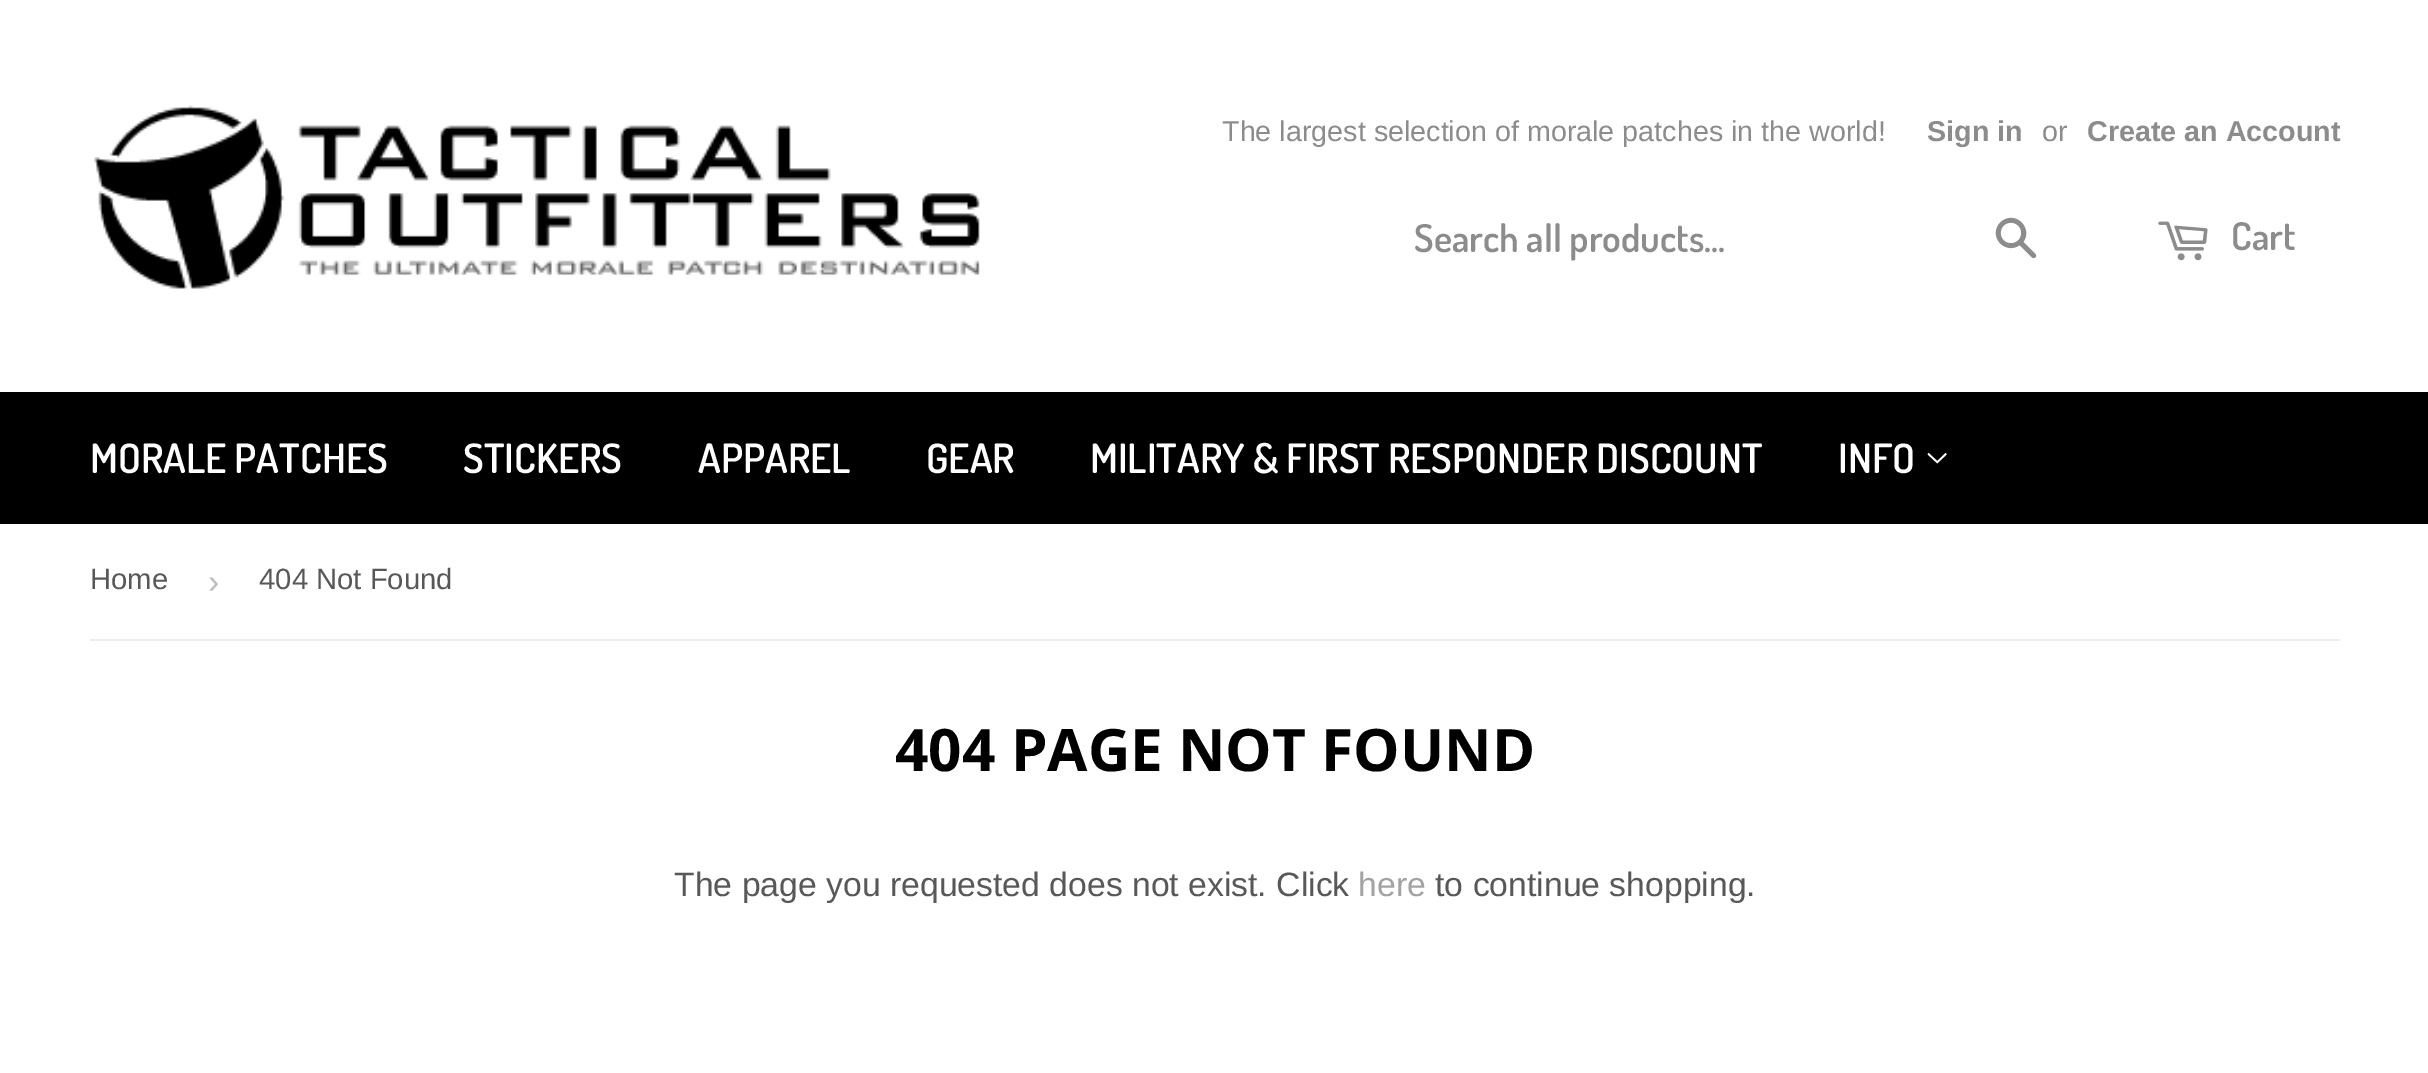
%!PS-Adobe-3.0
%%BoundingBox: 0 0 2428 1073
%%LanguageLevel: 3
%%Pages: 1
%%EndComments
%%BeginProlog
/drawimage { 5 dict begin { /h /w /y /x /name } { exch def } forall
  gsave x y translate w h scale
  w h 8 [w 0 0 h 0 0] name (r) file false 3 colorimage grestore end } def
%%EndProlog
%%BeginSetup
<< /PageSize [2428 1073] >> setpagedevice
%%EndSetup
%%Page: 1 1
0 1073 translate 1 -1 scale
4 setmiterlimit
1 setgray
0 0 2428 1073 rectfill
(images/1.raw) 94 105 886 184 drawimage
(images/2.raw) 1995 217 42 42 drawimage
(images/3.raw) 2158 221 50 40 drawimage
0 setgray
0 392 2428 132 rectfill
(images/4.raw) 1927 452 20 12 drawimage
0.925 setgray
90 639 2250 2 rectfill
/LiberationSans-Regular [28.7 0 0 -28.7 0 0] selectfont
0.549 setgray
1222 141 moveto (The largest selection of morale patches in the world!) show
/LiberationSans-Bold [28.7 0 0 -28.7 0 0] selectfont
1927 141 moveto (Sign in) show
/LiberationSans-Regular [28.7 0 0 -28.7 0 0] selectfont
2042 141 moveto (or) show
/LiberationSans-Bold [28.7 0 0 -28.7 0 0] selectfont
2087 141 moveto (Create an Account) show
/Dosis-SemiBold [38.25 0 0 -38.25 0 0] selectfont
1414 252 moveto (Search all products...) show
2231 250 moveto (Cart) show
/Dosis-SemiBold [40.5 0 0 -40.5 0 0] selectfont
1 setgray
90 473 moveto (MORALE PATCHES) show
463 473 moveto (STICKERS) show
698 473 moveto (APPAREL) show
926 473 moveto (GEAR) show
1090 473 moveto (MILITARY & FIRST RESPONDER DISCOUNT) show
1838 473 moveto (INFO) show
/LiberationSans-Regular [29.25 0 0 -29.25 0 0] selectfont
0.345 setgray
90 589 moveto (Home) show
/LiberationSans-Regular [33.75 0 0 -33.75 0 0] selectfont
0.733 setgray
208 593 moveto (›) show
/LiberationSans-Regular [29.25 0 0 -29.25 0 0] selectfont
0.345 setgray
259 589 moveto (404 Not Found) show
/OpenSans-Bold [58.5 0 0 -58.5 0 0] selectfont
0 setgray
895 771 moveto (404 PAGE NOT FOUND) show
/LiberationSans-Regular [33.75 0 0 -33.75 0 0] selectfont
0.345 setgray
674 896 moveto (The page you requested does not exist. Click) show
0.639 setgray
1358 896 moveto (here) show
0.345 setgray
1435 896 moveto (to continue shopping.) show
showpage
%%EOF
